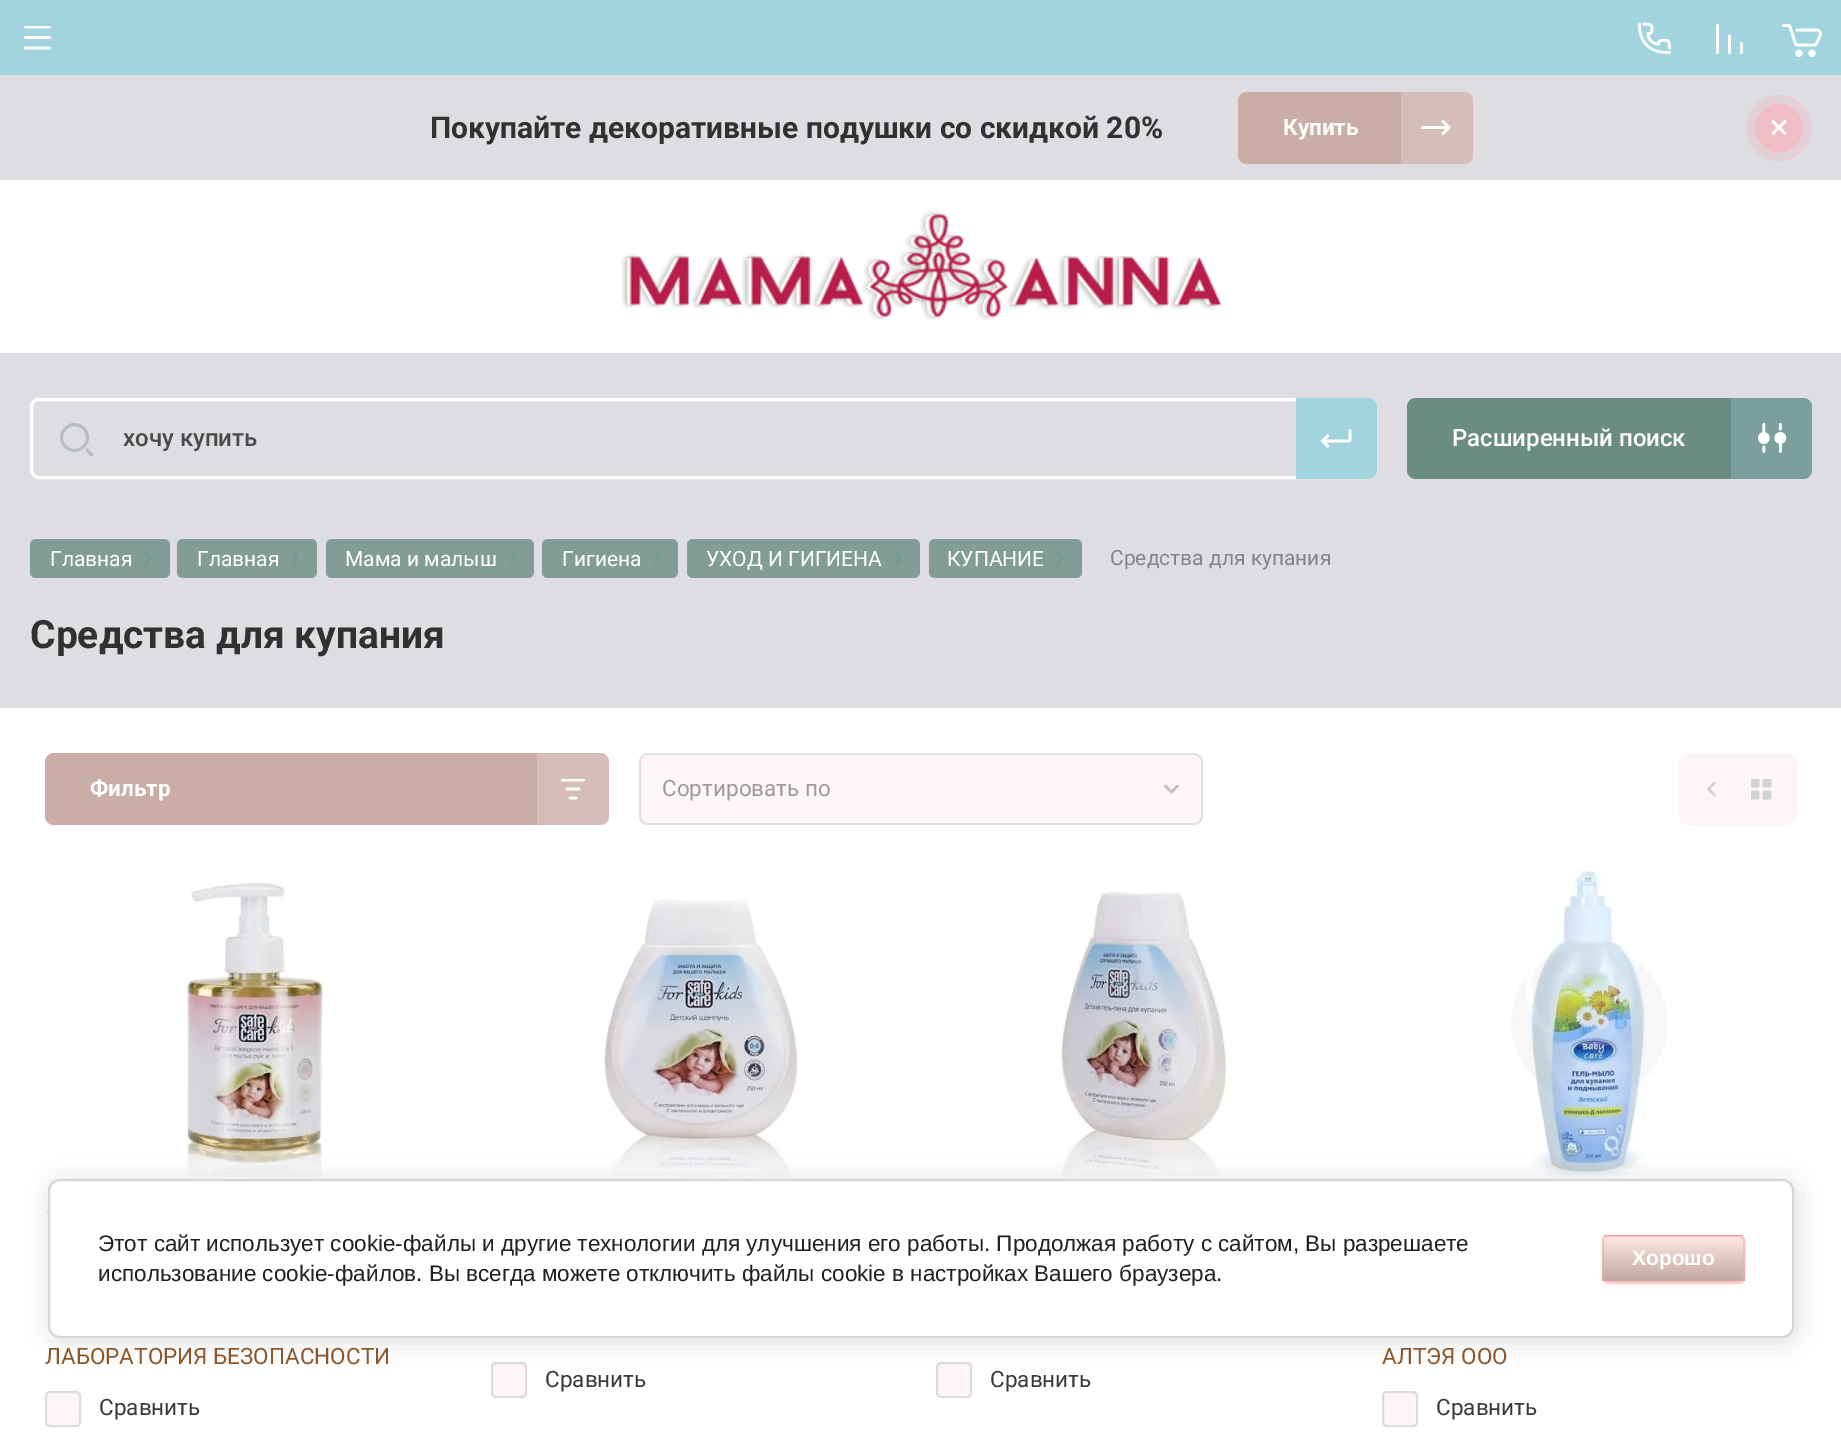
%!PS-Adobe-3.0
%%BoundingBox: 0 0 1841 1434
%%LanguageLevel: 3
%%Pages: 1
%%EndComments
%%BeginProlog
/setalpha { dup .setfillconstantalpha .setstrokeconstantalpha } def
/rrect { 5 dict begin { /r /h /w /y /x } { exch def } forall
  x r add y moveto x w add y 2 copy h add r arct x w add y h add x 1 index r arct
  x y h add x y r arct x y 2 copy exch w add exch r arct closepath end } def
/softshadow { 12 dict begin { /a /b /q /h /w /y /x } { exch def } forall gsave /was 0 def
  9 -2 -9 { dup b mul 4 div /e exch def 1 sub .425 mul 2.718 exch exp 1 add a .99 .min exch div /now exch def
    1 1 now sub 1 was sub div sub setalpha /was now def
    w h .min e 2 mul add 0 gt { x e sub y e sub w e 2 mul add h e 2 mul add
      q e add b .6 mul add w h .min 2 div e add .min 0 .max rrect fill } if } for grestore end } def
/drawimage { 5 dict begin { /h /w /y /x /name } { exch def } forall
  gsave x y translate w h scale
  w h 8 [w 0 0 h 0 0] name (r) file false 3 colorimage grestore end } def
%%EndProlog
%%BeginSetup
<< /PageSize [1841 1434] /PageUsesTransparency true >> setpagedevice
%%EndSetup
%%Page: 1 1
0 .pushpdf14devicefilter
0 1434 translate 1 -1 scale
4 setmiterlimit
0.867 0.867 0.886 setrgbcolor
0 0 1841 1434 rectfill
0.635 0.831 0.875 setrgbcolor
0 0 1841 75 rectfill
(images/1.raw) 24 26 27 24 drawimage
(images/2.raw) 1638 22 33 32 drawimage
(images/3.raw) 1716 24 27 30 drawimage
(images/4.raw) 1782 24 40 33 drawimage
0.792 0.678 0.655 setrgbcolor
1238 92 235 72 9 rrect fill
0.2 setalpha
1 setgray
newpath 1401 92 moveto 1464 92 lineto 1469 92 1473 96 1473 101 curveto 1473 155 lineto 1473 160 1469 164 1464 164 curveto 1401 164 lineto closepath fill
1 setalpha
(images/5.raw) 1421 120 30 15 drawimage
0.886 0.816 0.839 setrgbcolor
9 setlinewidth
newpath 1779 128 28.5 0 360 arc closepath stroke
0.54 setalpha
1 0.635 0.678 setrgbcolor
newpath 1779 128 24 0 360 arc closepath fill
1 setalpha
(images/6.raw) 1772 120 15 15 drawimage
1 setgray
0 180 1841 173 rectfill
(images/7.raw) 621 211 600 110 drawimage
3 setlinewidth
31.5 399.5 1344 78 7.5 rrect stroke
0.718 0.745 0.776 setrgbcolor
newpath 74.5 437.5 13 0 360 arc closepath stroke
1 setlinecap
newpath 87 450 moveto 91.5 454.5 lineto stroke
0.635 0.831 0.875 setrgbcolor
newpath 1296 398 moveto 1368 398 lineto 1373 398 1377 402 1377 407 curveto 1377 470 lineto 1377 475 1373 479 1368 479 curveto 1296 479 lineto closepath fill
(images/8.raw) 1320 429 32 19 drawimage
0.42 0.549 0.514 setrgbcolor
1407 398 405 81 9 rrect fill
0.27 setalpha
0.635 0.831 0.875 setrgbcolor
newpath 1731 398 moveto 1803 398 lineto 1808 398 1812 402 1812 407 curveto 1812 470 lineto 1812 475 1808 479 1803 479 curveto 1731 479 lineto closepath fill
1 setalpha
(images/9.raw) 1758 423 29 30 drawimage
0.51 0.612 0.588 setrgbcolor
30 539 140 39 6 rrect fill
(images/10.raw) 144 549 7 18 drawimage
177 539 140 39 6 rrect fill
(images/10.raw) 291 549 7 18 drawimage
326 539 208 39 6 rrect fill
(images/11.raw) 509 549 7 18 drawimage
542 539 136 39 6 rrect fill
(images/11.raw) 653 549 7 18 drawimage
687 539 233 39 6 rrect fill
(images/10.raw) 894 549 7 18 drawimage
929 539 153 39 6 rrect fill
(images/10.raw) 1056 549 7 18 drawimage
1 setgray
0 708 1841 726 rectfill
0.792 0.678 0.655 setrgbcolor
45 753 564 72 9 rrect fill
0.2 setalpha
1 setgray
newpath 537 753 moveto 600 753 lineto 605 753 609 757 609 762 curveto 609 816 lineto 609 821 605 825 600 825 curveto 537 825 lineto closepath fill
1 setalpha
(images/12.raw) 561 779 24 21 drawimage
0.996 0.965 0.965 setrgbcolor
639 753 564 72 9 rrect fill
0.15 setalpha
0.208 0.416 0.545 setrgbcolor
2 setlinewidth
0 setlinecap
640 754 562 70 8 rrect stroke
1 setalpha
(images/13.raw) 1164 785 15 9 drawimage
0.996 0.965 0.965 setrgbcolor
1679 753 118 72 9 rrect fill
(images/14.raw) 1707 782 9 15 drawimage
(images/15.raw) 1751 779 21 21 drawimage
(images/16.raw) 186 881 138 297 drawimage
(images/17.raw) 46 1211 2 3 drawimage
45 1391 36 36 5 rrect fill
0.15 setalpha
0.122 0.251 0.333 setrgbcolor
46 1392 34 34 4 rrect stroke
1 setalpha
(images/18.raw) 604 899 194 280 drawimage
0.996 0.965 0.965 setrgbcolor
491 1362 36 36 5 rrect fill
0.15 setalpha
0.122 0.251 0.333 setrgbcolor
492 1363 34 34 4 rrect stroke
1 setalpha
(images/19.raw) 1061 890 166 289 drawimage
0.996 0.965 0.965 setrgbcolor
936 1362 36 36 5 rrect fill
0.15 setalpha
0.122 0.251 0.333 setrgbcolor
937 1363 34 34 4 rrect stroke
1 setalpha
(images/20.raw) 1511 869 156 310 drawimage
0.996 0.965 0.965 setrgbcolor
1382 1391 36 36 5 rrect fill
0.15 setalpha
0.122 0.251 0.333 setrgbcolor
1383 1392 34 34 4 rrect stroke
1 setalpha
0 setgray
51 1182 1746 159 12 13.5 0.14 softshadow
1 setgray
49 1180 1744 157 11 rrect gsave fill grestore
0.839 setgray
stroke
1 0.635 0.678 setrgbcolor
1602 1236 143 48 6 1 0.54 softshadow
gsave
1602 1235 143 48 6 rrect clip newpath
gsave newpath 1602 1235 moveto 1745 1235 lineto 1745 1236 lineto 1602 1236 lineto closepath clip newpath
<< /ShadingType 2 /ColorSpace /DeviceRGB /Coords [1673 1191 1673 1236] /Extend [true true] /Function << /FunctionType 2 /Domain [0 1] /C0 [0.996 0.918 0.886] /C1 [0.761 0.655 0.631] /N 1 >> >> shfill grestore
gsave newpath 1602 1236 moveto 1745 1236 lineto 1745 1281 lineto 1602 1281 lineto closepath clip newpath
<< /ShadingType 2 /ColorSpace /DeviceRGB /Coords [1673 1236 1673 1281] /Extend [true true] /Function << /FunctionType 2 /Domain [0 1] /C0 [0.996 0.918 0.886] /C1 [0.761 0.655 0.631] /N 1 >> >> shfill grestore
gsave newpath 1602 1281 moveto 1745 1281 lineto 1745 1283 lineto 1602 1283 lineto closepath clip newpath
<< /ShadingType 2 /ColorSpace /DeviceRGB /Coords [1673 1281 1673 1326] /Extend [true true] /Function << /FunctionType 2 /Domain [0 1] /C0 [0.996 0.918 0.886] /C1 [0.761 0.655 0.631] /N 1 >> >> shfill grestore
grestore
0.54 setalpha
1603 1236 141 46 5 rrect stroke
/Roboto-Bold [30 0 0 -30 0 0] selectfont
1 setalpha
0.196 0.192 0.192 setrgbcolor
430 138 moveto (Покупайте декоративные подушки со скидкой 20%) show
/Roboto-Bold [22.5 0 0 -22.5 0 0] selectfont
1 setgray
1283 135 moveto (Купить) show
/Roboto-Medium [24 0 0 -24 0 0] selectfont
0.29 setgray
123 446 moveto (хочу купить) show
1 setgray
1452 446 moveto (Расширенный поиск) show
/Roboto-Regular [21 0 0 -21 0 0] selectfont
50 566 moveto (Главная) show
197 566 moveto (Главная) show
345 566 moveto (Мама и малыш) show
562 566 moveto (Гигиена) show
706 566 moveto (УХОД И ГИГИЕНА) show
947 566 moveto (КУПАНИЕ) show
0.522 0.522 0.533 setrgbcolor
1110 565 moveto (Средства для купания) show
/Roboto-Bold [39 0 0 -39 0 0] selectfont
0.196 0.192 0.192 setrgbcolor
30 648 moveto (Средства для купания) show
/Roboto-Bold [22.5 0 0 -22.5 0 0] selectfont
1 setgray
90 796 moveto (Фильтр) show
/Roboto-Regular [22.5 0 0 -22.5 0 0] selectfont
0.608 setgray
662 796 moveto (Сортировать по) show
0.545 0.341 0.165 setrgbcolor
45 1364 moveto (ЛАБОРАТОРИЯ БЕЗОПАСНОСТИ) show
0.224 setgray
99 1415 moveto (Сравнить) show
545 1387 moveto (Сравнить) show
990 1387 moveto (Сравнить) show
0.545 0.341 0.165 setrgbcolor
1382 1364 moveto (АЛТЭЯ ООО) show
0.224 setgray
1436 1415 moveto (Сравнить) show
/LiberationSans-Regular [22.5 0 0 -22.5 0 0] selectfont
0.129 setgray
98 1251 moveto (Этот сайт использует cookie-файлы и другие технологии для улучшения его работы. Продолжая работу с сайтом, Вы разрешаете) show
98 1281 moveto (использование cookie-файлов. Вы всегда можете отключить файлы cookie в настройках Вашего браузера.) show
/LiberationSans-Bold [21 0 0 -21 0 0] selectfont
1 setgray
1632 1265 moveto (Хорошо) show
.poppdf14devicefilter showpage
%%EOF
